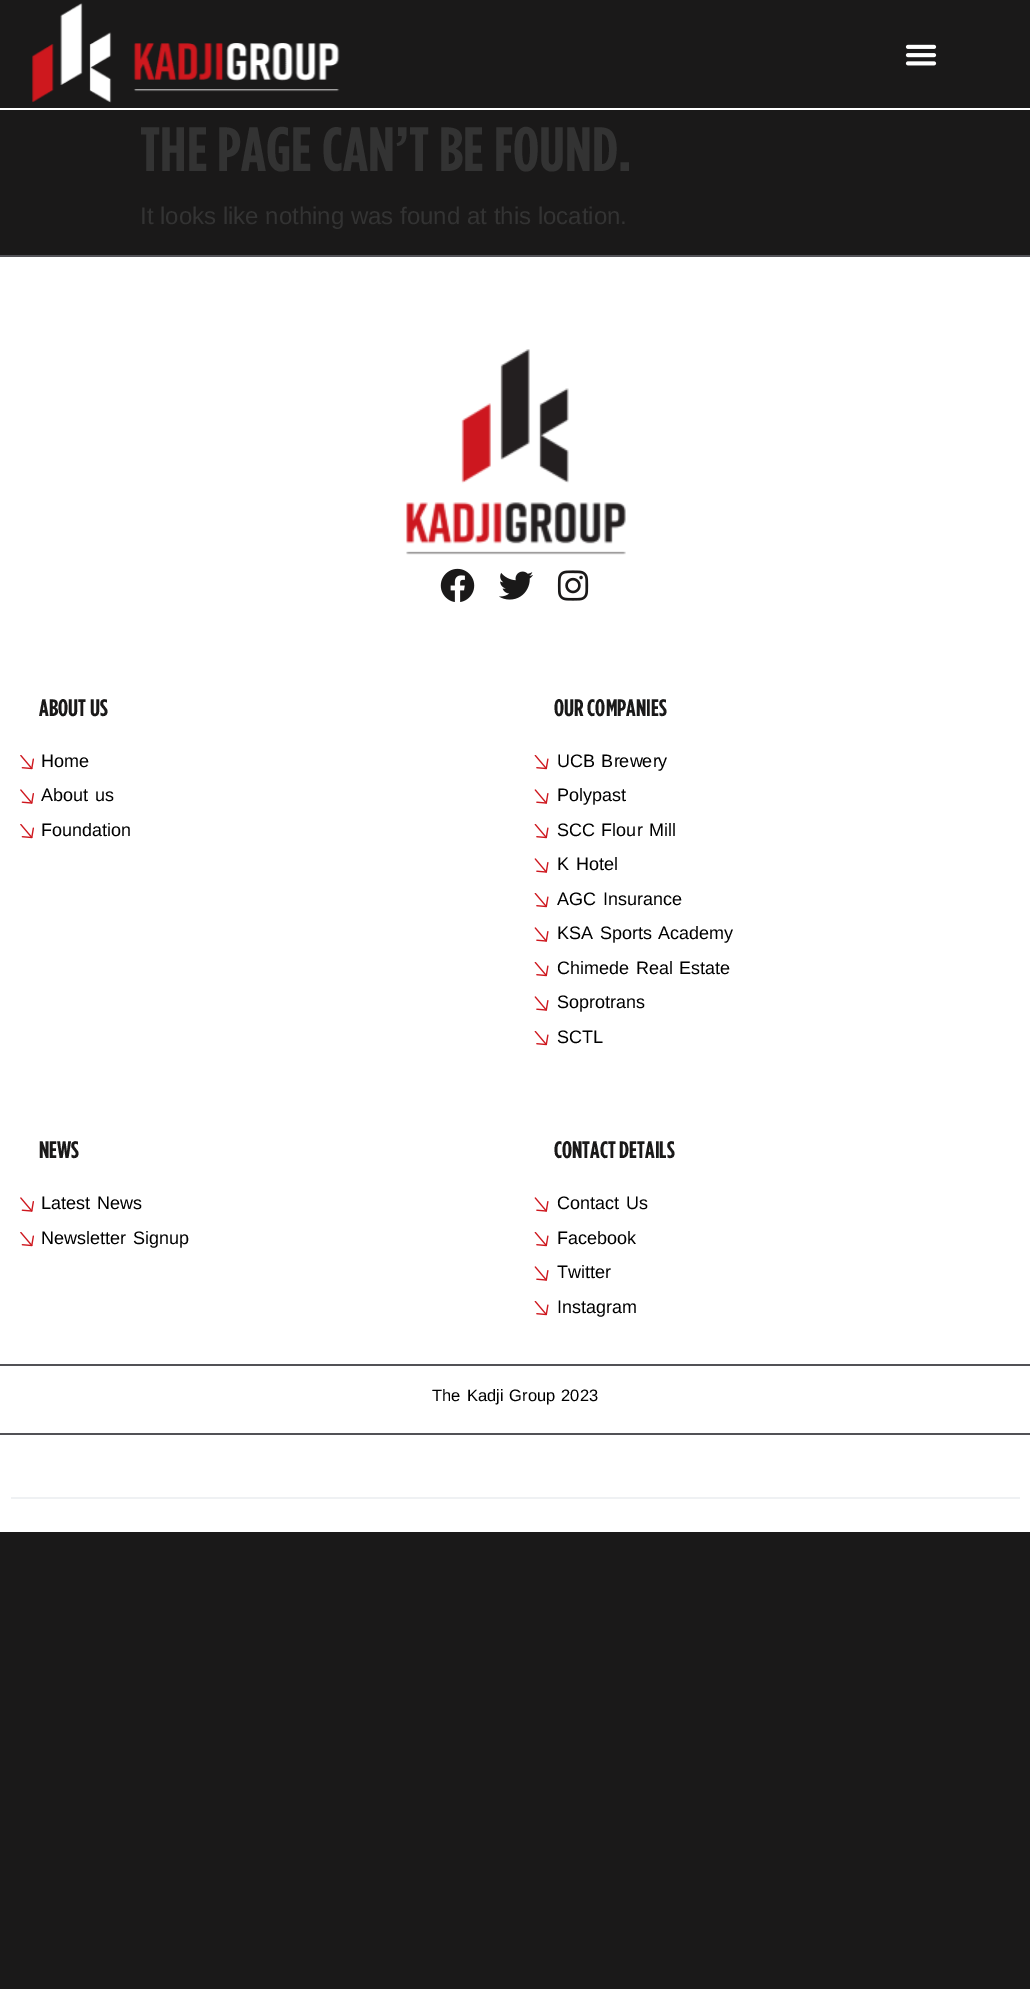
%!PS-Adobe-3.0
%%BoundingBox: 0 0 1030 1989
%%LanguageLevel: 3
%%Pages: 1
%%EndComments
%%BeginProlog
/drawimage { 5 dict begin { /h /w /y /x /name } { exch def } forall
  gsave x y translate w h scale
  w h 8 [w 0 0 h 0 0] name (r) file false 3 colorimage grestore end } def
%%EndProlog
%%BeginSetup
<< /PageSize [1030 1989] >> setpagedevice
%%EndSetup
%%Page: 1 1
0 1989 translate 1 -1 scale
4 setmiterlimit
0.102 0.098 0.098 setrgbcolor
0 0 1030 1989 rectfill
1 setgray
0 108 1030 2 rectfill
(images/1.raw) 32 3 308 100 drawimage
(images/2.raw) 905 44 32 22 drawimage
0 257 1030 1275 rectfill
0.318 0.318 0.337 setrgbcolor
0 255 1030 2 rectfill
0 1364 1030 2 rectfill
(images/3.raw) 406 349 220 206 drawimage
(images/4.raw) 440 568 35 34 drawimage
(images/5.raw) 499 571 34 29 drawimage
(images/6.raw) 557 570 32 31 drawimage
(images/7.raw) 20 755 14 15 drawimage
(images/8.raw) 20 789 14 15 drawimage
(images/7.raw) 20 824 14 15 drawimage
(images/9.raw) 534 755 15 15 drawimage
(images/10.raw) 534 789 15 15 drawimage
(images/9.raw) 534 824 15 15 drawimage
(images/10.raw) 534 858 15 15 drawimage
(images/9.raw) 534 893 15 15 drawimage
(images/10.raw) 534 927 15 15 drawimage
(images/9.raw) 534 962 15 15 drawimage
(images/10.raw) 534 996 15 15 drawimage
(images/9.raw) 534 1031 15 15 drawimage
(images/8.raw) 20 1197 14 15 drawimage
(images/7.raw) 20 1232 14 15 drawimage
(images/10.raw) 534 1197 15 15 drawimage
(images/9.raw) 534 1232 15 15 drawimage
(images/10.raw) 534 1266 15 15 drawimage
(images/9.raw) 534 1301 15 15 drawimage
0 1433 1030 2 rectfill
0.937 0.945 0.953 setrgbcolor
11 1497 1009 2 rectfill
/Gotham-Bold [62.5 0 0 -62.5 0 0] selectfont
0.2 setgray
140 171 moveto (THE PAGE CAN’T BE FOUND.) show
/LiberationSans-Regular [24 0 0 -24 0 0] selectfont
140 224 moveto (It looks like nothing was found at this location.) show
/Gotham-Bold [24 0 0 -24 0 0] selectfont
0.102 0.098 0.098 setrgbcolor
39 716 moveto (ABOUT US) show
/LiberationSans-Regular [18 0 0 -18 0 0] selectfont
0 setgray
41 767 moveto (Home) show
41 801 moveto 1.5 0 32 (About us) widthshow
41 836 moveto (Foundation) show
/Gotham-Bold [24 0 0 -24 0 0] selectfont
0.102 0.098 0.098 setrgbcolor
554 716 moveto (OUR COMPANIES) show
/LiberationSans-Regular [18 0 0 -18 0 0] selectfont
0 setgray
557 767 moveto 1.5 0 32 (UCB Brewery) widthshow
557 801 moveto (Polypast) show
557 836 moveto 1.5 0 32 (SCC Flour Mill) widthshow
557 870 moveto 1.5 0 32 (K Hotel) widthshow
557 905 moveto 1.5 0 32 (AGC Insurance) widthshow
557 939 moveto 1.5 0 32 (KSA Sports Academy) widthshow
557 974 moveto 1.5 0 32 (Chimede Real Estate) widthshow
557 1008 moveto (Soprotrans) show
557 1043 moveto (SCTL) show
/Gotham-Bold [24 0 0 -24 0 0] selectfont
0.102 0.098 0.098 setrgbcolor
39 1158 moveto (NEWS) show
/LiberationSans-Regular [18 0 0 -18 0 0] selectfont
0 setgray
41 1209 moveto 1.5 0 32 (Latest News) widthshow
41 1244 moveto 1.5 0 32 (Newsletter Signup) widthshow
/Gotham-Bold [24 0 0 -24 0 0] selectfont
0.102 0.098 0.098 setrgbcolor
554 1158 moveto (CONTACT DETAILS) show
/LiberationSans-Regular [18 0 0 -18 0 0] selectfont
0 setgray
557 1209 moveto 1.5 0 32 (Contact Us) widthshow
557 1244 moveto (Facebook) show
557 1278 moveto (Twitter) show
557 1313 moveto (Instagram) show
/LiberationSans-Regular [16.5 0 0 -16.5 0 0] selectfont
432 1401 moveto 1.5 0 32 (The Kadji Group 2023) widthshow
showpage
%%EOF
